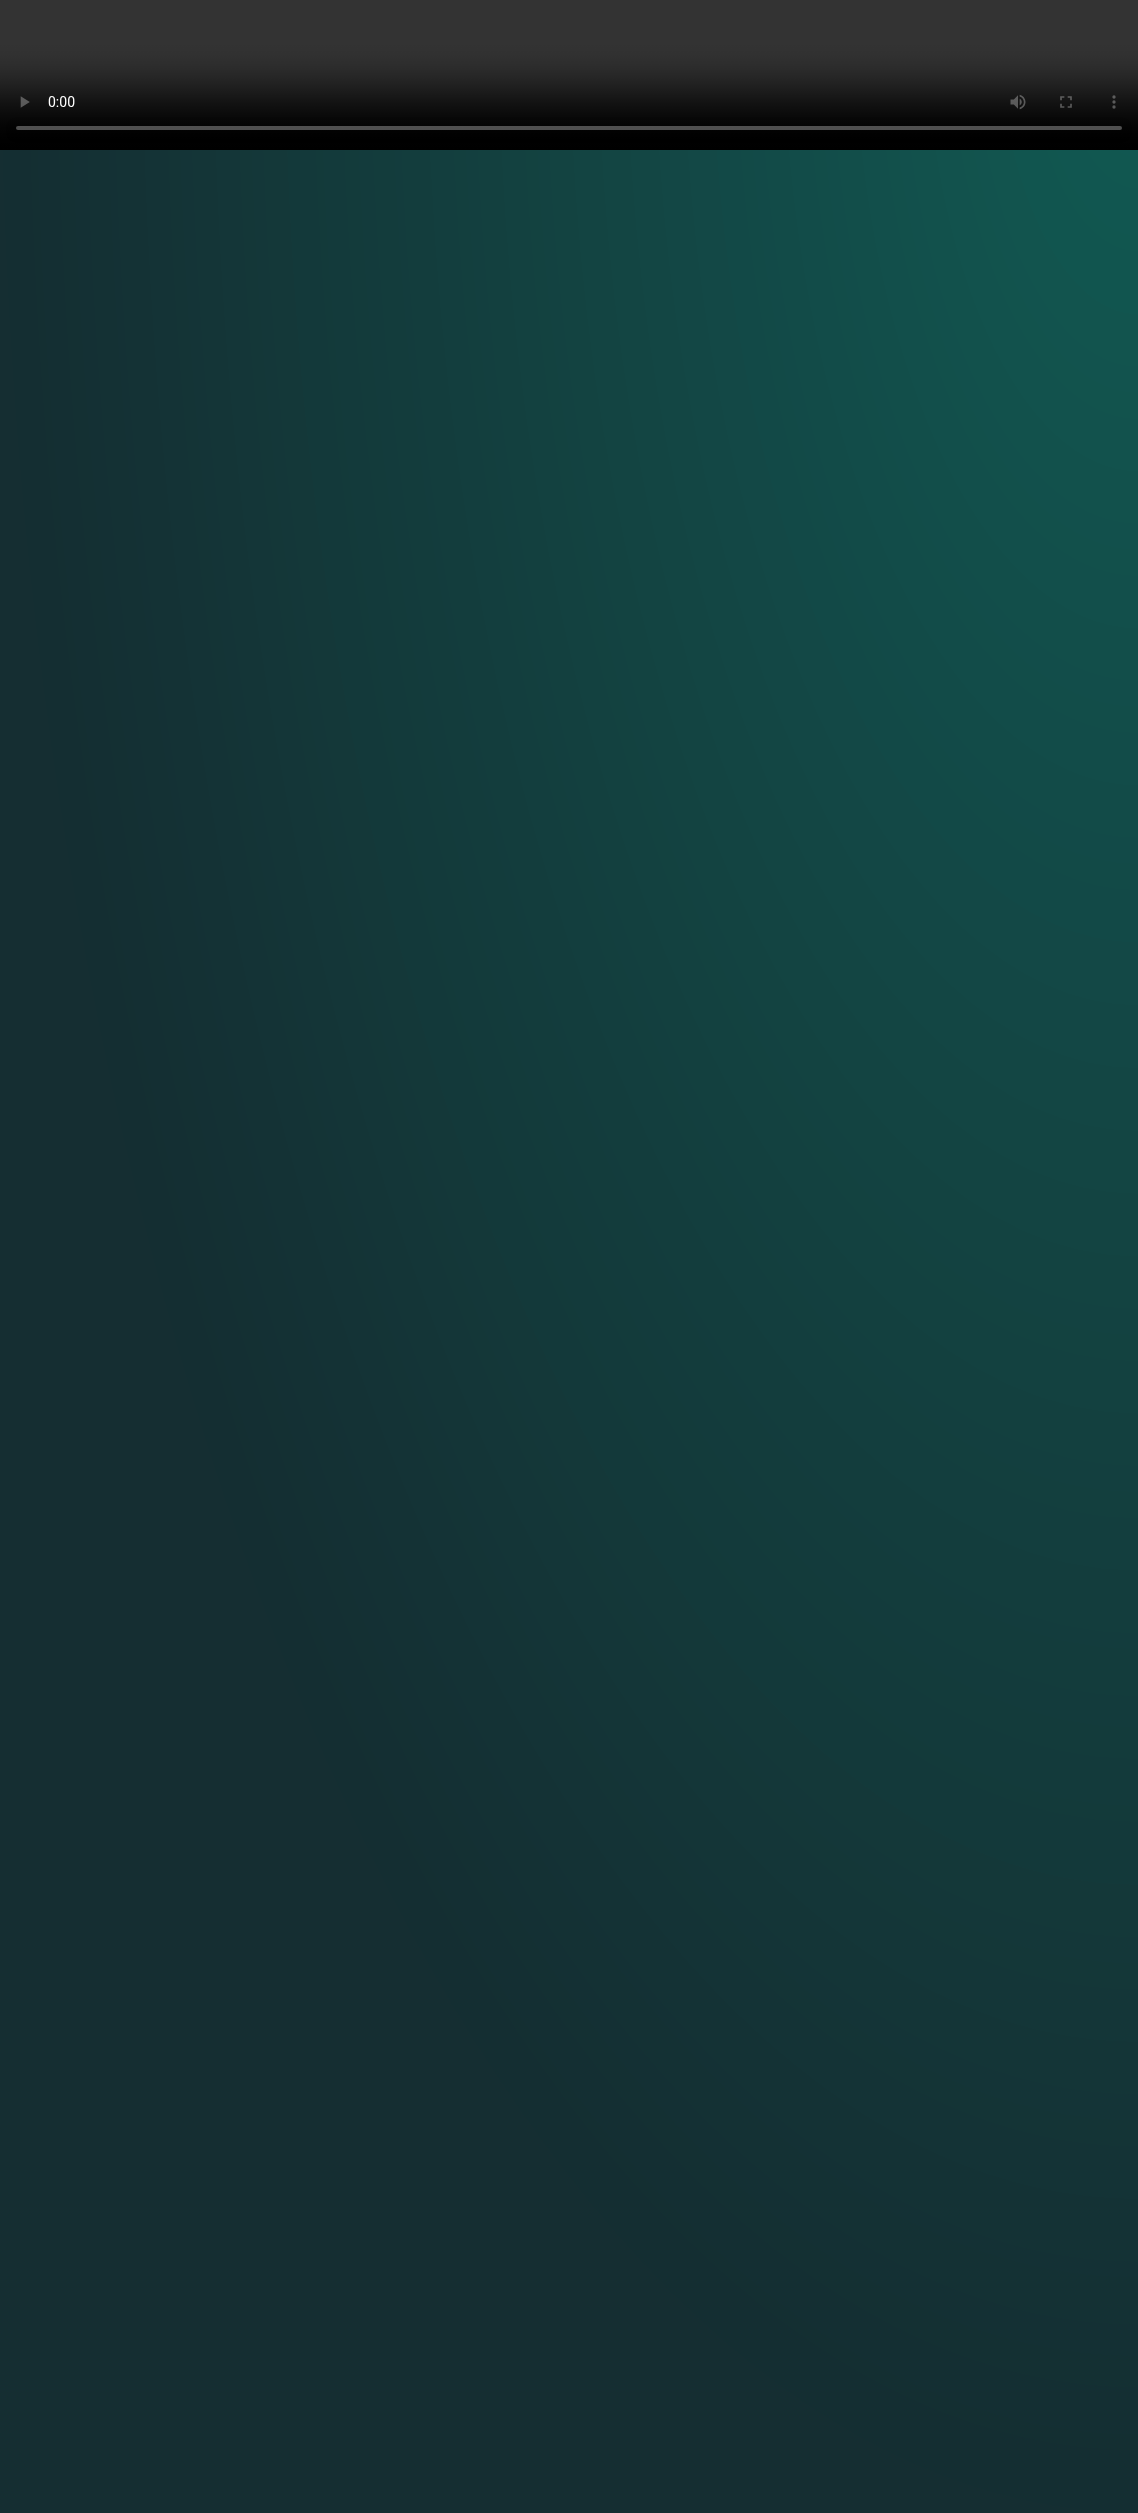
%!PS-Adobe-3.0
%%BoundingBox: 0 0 1138 2513
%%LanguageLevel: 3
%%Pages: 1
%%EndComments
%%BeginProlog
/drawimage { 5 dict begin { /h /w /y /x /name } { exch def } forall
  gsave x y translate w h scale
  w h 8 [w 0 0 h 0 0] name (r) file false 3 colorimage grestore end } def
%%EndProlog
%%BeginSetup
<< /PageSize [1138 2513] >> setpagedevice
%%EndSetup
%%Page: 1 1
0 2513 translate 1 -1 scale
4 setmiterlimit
1 setgray
0 0 1138 2513 rectfill
gsave newpath 0 150 moveto 1138 150 lineto 1138 2513 lineto 0 2513 lineto closepath clip newpath 1138 0 translate 1138 2513 scale
<< /ShadingType 3 /ColorSpace /DeviceRGB /Coords [0 0 0 0 0 1] /Extend [true true] /Function << /FunctionType 2 /Domain [0 1] /C0 [0.067 0.353 0.325] /C1 [0.082 0.18 0.196] /N 1 >> >> shfill grestore
(images/1.raw) 0 0 1138 150 drawimage
showpage
%%EOF
